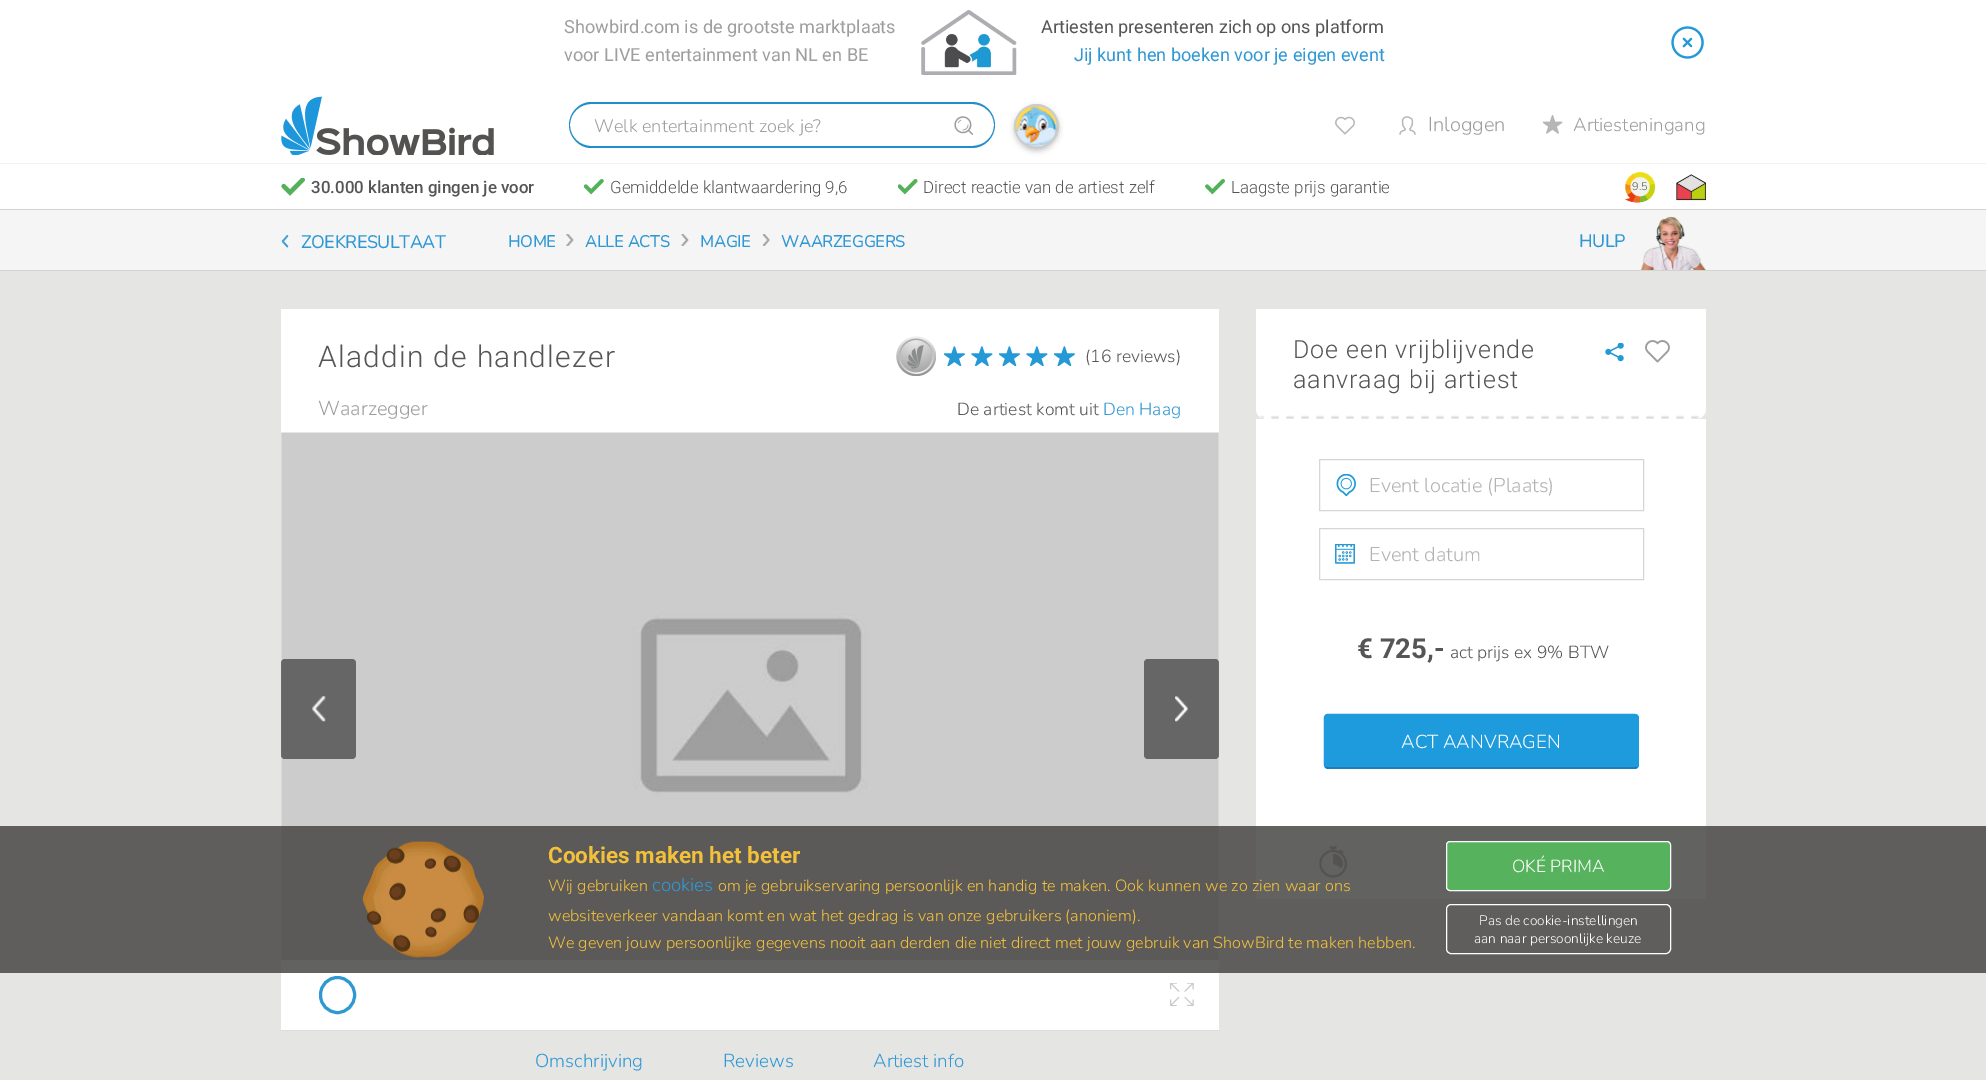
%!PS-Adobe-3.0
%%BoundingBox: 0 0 1986 1080
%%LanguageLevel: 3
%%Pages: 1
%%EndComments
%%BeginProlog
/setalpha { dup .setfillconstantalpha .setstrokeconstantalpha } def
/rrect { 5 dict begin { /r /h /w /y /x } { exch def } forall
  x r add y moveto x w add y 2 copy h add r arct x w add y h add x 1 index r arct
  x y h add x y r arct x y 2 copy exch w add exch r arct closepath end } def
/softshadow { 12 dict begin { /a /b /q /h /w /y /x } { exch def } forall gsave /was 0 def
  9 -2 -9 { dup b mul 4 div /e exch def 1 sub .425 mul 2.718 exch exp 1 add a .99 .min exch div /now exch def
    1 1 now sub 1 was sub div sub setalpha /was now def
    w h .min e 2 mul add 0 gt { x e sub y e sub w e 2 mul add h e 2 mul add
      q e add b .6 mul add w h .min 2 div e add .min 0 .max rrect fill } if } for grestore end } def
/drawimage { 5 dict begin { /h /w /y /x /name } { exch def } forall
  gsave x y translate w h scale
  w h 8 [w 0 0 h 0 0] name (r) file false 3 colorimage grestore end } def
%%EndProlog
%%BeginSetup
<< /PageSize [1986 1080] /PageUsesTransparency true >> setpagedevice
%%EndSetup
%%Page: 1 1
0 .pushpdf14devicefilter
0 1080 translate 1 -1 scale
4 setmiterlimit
0.898 0.898 0.894 setrgbcolor
0 0 1986 1080 rectfill
1 setgray
0 0 1986 163 rectfill
(images/1.raw) 921 10 96 65 drawimage
(images/2.raw) 1671 26 33 33 drawimage
(images/3.raw) 281 96 213 59 drawimage
0.133 0.553 0.796 setrgbcolor
newpath 942 102 moveto 972 102 lineto 985 102 995 113 995 125 curveto 995 137 985 148 972 148 curveto 942 148 lineto closepath 942 104 moveto 972 104 lineto 984 104 994 113 994 125 curveto 994 137 984 146 972 146 curveto 942 146 lineto closepath eofill
1 setgray
newpath 591.5 103 moveto 944 103 lineto 944 148 lineto 591.5 148 lineto 579 148 569 138 569 125.5 curveto 569 113 579 103 591.5 103 curveto closepath fill
0.133 0.553 0.796 setrgbcolor
newpath 591 102 moveto 944 102 lineto 944 148 lineto 591 148 lineto 579 148 569 137 569 125 curveto 569 113 579 102 591 102 curveto closepath 591 104 moveto 944 104 lineto 944 146 lineto 591 146 lineto 580 146 570 137 570 125 curveto 570 113 580 104 591 104 curveto closepath eofill
(images/4.raw) 954 116 20 19 drawimage
0 setgray
1014 106 45 45 22.5 2.5 0.2 softshadow
0.8 setgray
3 setlinewidth
newpath 1036.5 126.5 21 0 360 arc closepath stroke
(images/5.raw) 1015 105 42 42 drawimage
(images/6.raw) 1335 116 20 19 drawimage
(images/7.raw) 1399 116 17 19 drawimage
(images/8.raw) 1543 115 20 19 drawimage
1 setgray
0 164 1986 45 rectfill
0.953 0.949 0.949 setrgbcolor
0 163 1986 1 rectfill
(images/9.raw) 281 178 24 18 drawimage
(images/10.raw) 584 179 20 16 drawimage
(images/11.raw) 898 179 20 16 drawimage
(images/12.raw) 1205 179 20 16 drawimage
(images/13.raw) 1625 171 31 32 drawimage
(images/14.raw) 1676 174 30 27 drawimage
0.961 setgray
0 210 1986 60 rectfill
0.831 0.827 0.824 setrgbcolor
0 209 1986 1 rectfill
0 270 1986 1 rectfill
(images/15.raw) 281 235 8 13 drawimage
(images/16.raw) 566 234 8 12 drawimage
(images/17.raw) 681 234 8 12 drawimage
(images/18.raw) 762 234 8 12 drawimage
(images/19.raw) 1641 216 65 54 drawimage
1 setgray
281 309 938 721 rectfill
0.867 setgray
281 1030 938 1 rectfill
(images/20.raw) 896 336 40 40 drawimage
(images/21.raw) 944 346 21 20 drawimage
(images/22.raw) 971 346 22 20 drawimage
(images/21.raw) 999 346 21 20 drawimage
(images/22.raw) 1026 346 22 20 drawimage
(images/21.raw) 1054 346 21 20 drawimage
(images/23.raw) 281 432 938 528 drawimage
0.5 setalpha
0 setgray
281 659 75 100 4 rrect fill
1 setalpha
(images/24.raw) 312 696 14 26 drawimage
0.5 setalpha
1144 659 75 100 4 rrect fill
1 setalpha
(images/25.raw) 1175 696 13 26 drawimage
0.18 0.596 0.824 setrgbcolor
320.5 977.5 34 35 17 rrect stroke
(images/26.raw) 1170 983 24 23 drawimage
1 setgray
newpath 1256 309 moveto 1706 309 lineto 1706 409 lineto 1706 414.5 1701.5 419 1696 419 curveto 1266 419 lineto 1260.5 419 1256 414.5 1256 409 curveto closepath fill
(images/27.raw) 1260 415 439 4 drawimage
(images/28.raw) 1605 343 19 19 drawimage
(images/29.raw) 1645 340 25 23 drawimage
1256 419 450 480 rectfill
(images/30.raw) 1336 474 20 22 drawimage
0.839 0.839 0.831 setrgbcolor
1 setlinewidth
1319.5 459.5 324 51 rectstroke
(images/31.raw) 1335 544 20 20 drawimage
1319.5 528.5 324 51 rectstroke
0.114 0.608 0.863 setrgbcolor
1324 714 315 55 4 rrect fill
0.125 0.447 0.675 setrgbcolor
1.2 setlinewidth
newpath 1637 767 moveto 1635 768 lineto 1327.5 768 lineto 1325.5 767 lineto stroke
0.114 0.608 0.863 setrgbcolor
newpath 1325.5 767 moveto 1324.5 765 lineto 1324.5 717.5 lineto 1325.5 715.5 lineto 1327.5 714.5 lineto 1635 714.5 lineto 1637 715.5 lineto 1638 717.5 lineto 1638 765 lineto 1637 767 lineto stroke
(images/32.raw) 1319 846 28 32 drawimage
0.85 setalpha
0.278 0.275 0.267 setrgbcolor
0 826 1986 147 rectfill
1 setalpha
(images/33.raw) 362 840 122 118 drawimage
0.341 0.698 0.365 setrgbcolor
1446.5 841.5 224 49 3.5 rrect gsave fill grestore
1 setgray
1 setlinewidth
stroke
1446.5 904.5 224 49 4.5 rrect stroke
/Roboto-Regular [18.1 0 0 -18.1 0 0] selectfont
0.62 setgray
564 33 moveto (Showbird.com is de grootste marktplaats) show
564 61 moveto (voor LIVE entertainment van NL en BE) show
0.333 setgray
1041 33 moveto (Artiesten presenteren zich op ons platform) show
0.184 0.596 0.831 setrgbcolor
1074 61 moveto (Jij kunt hen boeken voor je eigen event) show
/Nunito-ExtraLight [18.1 0 0 -18.1 0 0] selectfont
0.62 setgray
594 132 moveto (Welk entertainment zoek je?) show
/Nunito-ExtraLight [20 0 0 -20 0 0] selectfont
1428 131 moveto (Inloggen) show
/Nunito-ExtraLight [18.75 0 0 -18.75 0 0] selectfont
1573 131 moveto (Artiesteningang) show
/Roboto-Medium [16.9 0 0 -16.9 0 0] selectfont
0.333 setgray
311 193 moveto (30.000 klanten gingen je voor) show
/Roboto-Light [16.9 0 0 -16.9 0 0] selectfont
610 193 moveto (Gemiddelde klantwaardering 9,6) show
923 193 moveto (Direct reactie van de artiest zelf) show
1231 193 moveto (Laagste prijs garantie) show
/Nunito-ExtraLight [11 0 0 -11 0 0] selectfont
1632 190 moveto (9.5) show
/Nunito-Bold [17.5 0 0 -17.5 0 0] selectfont
0.184 0.596 0.831 setrgbcolor
301 248 moveto (ZOEKRESULTAAT) show
/Nunito-Bold [16.25 0 0 -16.25 0 0] selectfont
508 247 moveto (HOME) show
585 247 moveto (ALLE ACTS) show
700 247 moveto (MAGIE) show
781 247 moveto (WAARZEGGERS) show
/Nunito-Bold [17.5 0 0 -17.5 0 0] selectfont
1579 247 moveto (HULP) show
/Roboto-Light [30 0 0 -30 0 0] selectfont
0.333 setgray
318 367 moveto 1.25 0 (Aladdin de handlezer) ashow
/Nunito-ExtraLight [20 0 0 -20 0 0] selectfont
0.62 setgray
318 415 moveto (Waarzegger) show
/Nunito-ExtraLight [17.5 0 0 -17.5 0 0] selectfont
0.333 setgray
1085 362 moveto (\(16 reviews\)) show
957 415 moveto (De artiest komt uit) show
0.184 0.596 0.831 setrgbcolor
1103 415 moveto (Den Haag) show
/Nunito-ExtraLight [18.75 0 0 -18.75 0 0] selectfont
535 1067 moveto (Omschrijving) show
723 1067 moveto (Reviews) show
873 1067 moveto (Artiest info) show
/Roboto-Light [25 0 0 -25 0 0] selectfont
0.333 setgray
1293 358 moveto 0.9 0 (Doe een vrijblijvende) ashow
1293 388 moveto 0.9 0 (aanvraag bij artiest) ashow
/Nunito-ExtraLight [20 0 0 -20 0 0] selectfont
0.702 setgray
1369 492 moveto (Event locatie \(Plaats\)) show
1369 561 moveto (Event datum) show
/Roboto-Bold [27.5 0 0 -27.5 0 0] selectfont
0.333 setgray
1357 658 moveto (€ 725,-) show
/Nunito-ExtraLight [17.5 0 0 -17.5 0 0] selectfont
1450 658 moveto (act prijs ex 9% BTW) show
/Nunito-ExtraLight [18.75 0 0 -18.75 0 0] selectfont
1 setgray
1401 748 moveto (ACT AANVRAGEN) show
/Roboto-Bold [22.5 0 0 -22.5 0 0] selectfont
0.949 0.753 0.227 setrgbcolor
548 863 moveto (Cookies maken het beter) show
/Nunito-ExtraLight [16.25 0 0 -16.25 0 0] selectfont
548 891 moveto (Wij gebruiken) show
/Nunito-ExtraLight [18.75 0 0 -18.75 0 0] selectfont
0.184 0.596 0.831 setrgbcolor
652 891 moveto (cookies) show
/Nunito-ExtraLight [16.25 0 0 -16.25 0 0] selectfont
0.949 0.753 0.227 setrgbcolor
718 891 moveto (om je gebruikservaring persoonlijk en handig te maken. Ook kunnen we zo zien waar ons) show
548 921 moveto (websiteverkeer vandaan komt en wat het gedrag is van onze gebruikers \(anoniem\).) show
548 948 moveto (We geven jouw persoonlijke gegevens nooit aan derden die niet direct met jouw gebruik van ShowBird te maken hebben.) show
/Nunito-ExtraLight [17.5 0 0 -17.5 0 0] selectfont
1 setgray
1512 872 moveto (OKÉ PRIMA) show
/Nunito-ExtraLight [13.75 0 0 -13.75 0 0] selectfont
1479 925 moveto (Pas de cookie-instellingen) show
1474 943 moveto (aan naar persoonlijke keuze) show
.poppdf14devicefilter showpage
%%EOF
